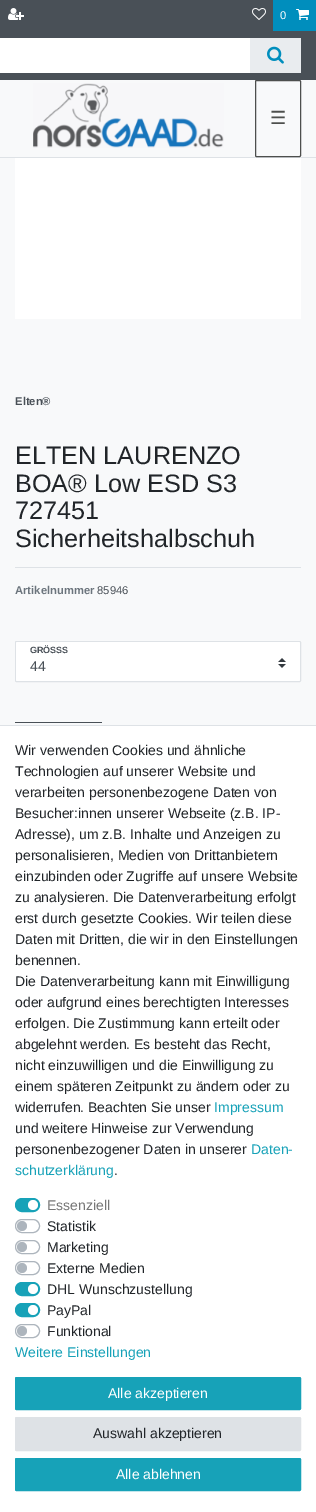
%!PS-Adobe-3.0
%%BoundingBox: 0 0 316 1512
%%LanguageLevel: 3
%%Pages: 1
%%EndComments
%%BeginProlog
/rrect { 5 dict begin { /r /h /w /y /x } { exch def } forall
  x r add y moveto x w add y 2 copy h add r arct x w add y h add x 1 index r arct
  x y h add x y r arct x y 2 copy exch w add exch r arct closepath end } def
/drawimage { 5 dict begin { /h /w /y /x /name } { exch def } forall
  gsave x y translate w h scale
  w h 8 [w 0 0 h 0 0] name (r) file false 3 colorimage grestore end } def
%%EndProlog
%%BeginSetup
<< /PageSize [316 1512] >> setpagedevice
%%EndSetup
%%Page: 1 1
0 1512 translate 1 -1 scale
4 setmiterlimit
0.973 0.976 0.98 setrgbcolor
0 0 316 1512 rectfill
0.286 0.314 0.341 setrgbcolor
0 0 316 80 rectfill
(images/1.raw) 8 8 16 12 drawimage
(images/2.raw) 252 8 14 12 drawimage
0 0.557 0.741 setrgbcolor
273 0 43 31 rectfill
(images/3.raw) 296 9 13 11 drawimage
1 setgray
0 38 250 35 rectfill
0.914 0.925 0.937 setrgbcolor
250 38 51 35 rectfill
(images/4.raw) 267 46 17 18 drawimage
0.871 0.886 0.902 setrgbcolor
0 157 316 1 rectfill
(images/5.raw) 33 83 191 65 drawimage
0.302 0.31 0.302 setrgbcolor
255.5 80.5 45 76 1 rrect stroke
1 setgray
15 158 286 161 rectfill
0.871 0.886 0.902 setrgbcolor
15 567 286 1 rectfill
15.5 641.5 285 40 1 rrect stroke
1 setgray
16 642 284 39 1.5 rrect fill
(images/6.raw) 278 658 8 10 drawimage
0.286 0.314 0.341 setrgbcolor
15 722 87 1 rectfill
1 setgray
0 726 316 786 rectfill
0.871 0.886 0.902 setrgbcolor
0 725 316 1 rectfill
0.09 0.635 0.722 setrgbcolor
15.5 1198.5 24 13 6.5 rrect gsave fill grestore
stroke
1 setgray
newpath 33 1205 5 0 360 arc closepath fill
0.678 0.71 0.741 setrgbcolor
15.5 1219.5 24 13 6.5 rrect stroke
newpath 22 1226 5 0 360 arc closepath fill
15.5 1240.5 24 13 6.5 rrect stroke
newpath 22 1247 5 0 360 arc closepath fill
15.5 1261.5 24 13 6.5 rrect stroke
newpath 22 1268 5 0 360 arc closepath fill
0.09 0.635 0.722 setrgbcolor
15.5 1282.5 24 13 6.5 rrect gsave fill grestore
stroke
1 setgray
newpath 33 1289 5 0 360 arc closepath fill
0.09 0.635 0.722 setrgbcolor
15.5 1303.5 24 13 6.5 rrect gsave fill grestore
stroke
1 setgray
newpath 33 1310 5 0 360 arc closepath fill
0.678 0.71 0.741 setrgbcolor
15.5 1324.5 24 13 6.5 rrect stroke
newpath 22 1331 5 0 360 arc closepath fill
0.09 0.635 0.722 setrgbcolor
15.5 1377.5 285 32 1 rrect gsave fill grestore
stroke
0.871 0.886 0.902 setrgbcolor
15.5 1417.5 285 33 1 rrect gsave fill grestore
stroke
0.09 0.635 0.722 setrgbcolor
15.5 1458.5 285 32 1 rrect gsave fill grestore
stroke
/LiberationSans-Regular [11.25 0 0 -11.25 0 0] selectfont
1 setgray
280 19 moveto (0) show
/DejaVuSans-Regular [18 0 0 -18 0 0] selectfont
0.302 0.31 0.302 setrgbcolor
270 124 moveto (☰) show
/LiberationSans-Bold [11.25 0 0 -11.25 0 0] selectfont
0.286 0.314 0.341 setrgbcolor
15 405 moveto (Elten®) show
/LiberationSans-Regular [25.25 0 0 -25.25 0 0] selectfont
0.129 0.145 0.161 setrgbcolor
15 464 moveto (ELTEN LAURENZO) show
15 492 moveto (BOA® Low ESD S3) show
15 519 moveto (727451) show
15 547 moveto (Sicherheitshalbschuh) show
/LiberationSans-Bold [11.25 0 0 -11.25 0 0] selectfont
0.424 0.459 0.49 setrgbcolor
15 594 moveto (Artikelnummer) show
/LiberationSans-Regular [11.25 0 0 -11.25 0 0] selectfont
0.286 0.314 0.341 setrgbcolor
97 594 moveto (85946) show
/LiberationSans-Bold [9 0 0 -9 0 0] selectfont
30 653 moveto (GRÖSSS) show
/LiberationSans-Regular [14 0 0 -14 0 0] selectfont
30 671 moveto (44) show
0.129 0.145 0.161 setrgbcolor
15 755 moveto (Wir verwenden Cookies und ähnliche) show
15 776 moveto (Technologien auf unserer Website und) show
15 797 moveto (verarbeiten personenbezogene Daten von) show
15 818 moveto (Besucher:innen unserer Webseite \(z.B. IP-) show
15 839 moveto (Adresse\), um z.B. Inhalte und Anzeigen zu) show
15 860 moveto (personalisieren, Medien von Drittanbietern) show
15 881 moveto (einzubinden oder Zugriffe auf unsere Website) show
15 902 moveto (zu analysieren. Die Datenverarbeitung erfolgt) show
15 923 moveto (erst durch gesetzte Cookies. Wir teilen diese) show
15 944 moveto (Daten mit Dritten, die wir in den Einstellungen) show
15 965 moveto (benennen.) show
15 986 moveto (Die Datenverarbeitung kann mit Einwilligung) show
15 1007 moveto (oder aufgrund eines berechtigten Interesses) show
15 1028 moveto (erfolgen. Die Zustimmung kann erteilt oder) show
15 1049 moveto (abgelehnt werden. Es besteht das Recht,) show
15 1070 moveto (nicht einzuwilligen und die Einwilligung zu) show
15 1091 moveto (einem späteren Zeitpunkt zu ändern oder zu) show
15 1112 moveto (widerrufen. Beachten Sie unser) show
0.09 0.635 0.722 setrgbcolor
214 1112 moveto (Impressum) show
0.129 0.145 0.161 setrgbcolor
15 1133 moveto (und weitere Hinweise zur Verwendung) show
15 1154 moveto (personenbezogener Daten in unserer) show
0.09 0.635 0.722 setrgbcolor
251 1154 moveto (Daten-) show
15 1175 moveto (schutzerklärung) show
0.129 0.145 0.161 setrgbcolor
114 1175 moveto (.) show
0.463 setgray
47 1210 moveto (Essenziell) show
0.129 0.145 0.161 setrgbcolor
47 1231 moveto (Statistik) show
47 1252 moveto (Marketing) show
47 1273 moveto (Externe Medien) show
47 1294 moveto (DHL Wunschzustellung) show
47 1315 moveto (PayPal) show
47 1336 moveto (Funktional) show
0.09 0.635 0.722 setrgbcolor
15 1357 moveto (Weitere Einstellungen) show
1 setgray
108 1398 moveto (Alle akzeptieren) show
0.129 0.145 0.161 setrgbcolor
93 1438 moveto (Auswahl akzeptieren) show
1 setgray
116 1479 moveto (Alle ablehnen) show
showpage
%%EOF
